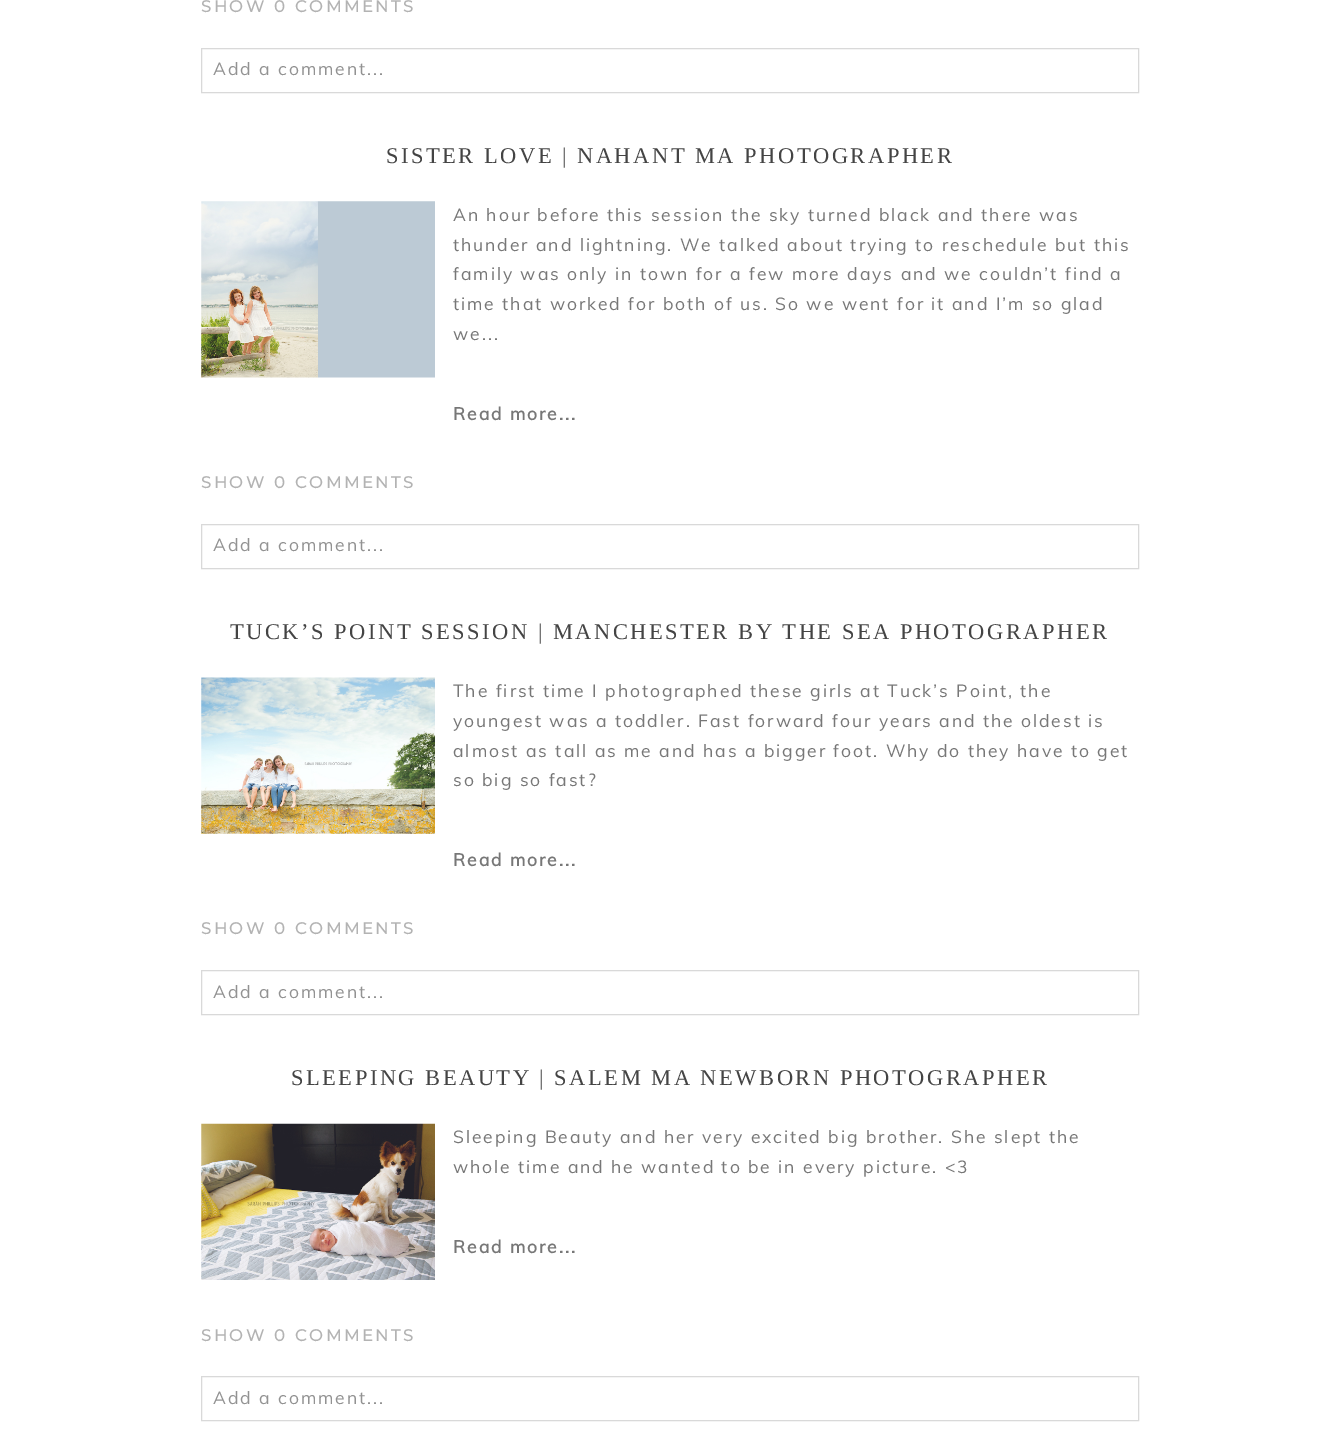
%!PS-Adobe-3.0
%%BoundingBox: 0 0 1339 1448
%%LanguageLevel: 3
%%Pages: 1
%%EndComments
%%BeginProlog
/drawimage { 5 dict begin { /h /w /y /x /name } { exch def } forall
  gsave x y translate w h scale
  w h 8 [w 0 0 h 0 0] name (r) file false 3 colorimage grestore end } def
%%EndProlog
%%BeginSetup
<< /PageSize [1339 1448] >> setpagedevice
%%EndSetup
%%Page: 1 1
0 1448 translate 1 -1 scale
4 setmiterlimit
1 setgray
0 0 1339 1448 rectfill
0.851 setgray
201.5 48.5 937 44 rectstroke
(images/1.raw) 201 201 234 177 drawimage
201.5 524.5 937 44 rectstroke
(images/2.raw) 201 677 234 157 drawimage
201.5 970.5 937 44 rectstroke
(images/3.raw) 201 1123 234 157 drawimage
201.5 1376.5 937 44 rectstroke
/Montserrat-Bold [16.25 0 0 -16.25 0 0] selectfont
0.702 setgray
201 12 moveto 2.6 0 (SHOW) ashow
274 12 moveto 1 0 32 2.6 0 (0 COMMENTS) awidthshow
/Muli-Regular [17.5 0 0 -17.5 0 0] selectfont
0.573 setgray
213 75 moveto 1.93 0 (Add a comment...) ashow
/LiberationSerif-Regular [22.5 0 0 -22.5 0 0] selectfont
0.267 setgray
386 163 moveto 2.48 0 (SISTER LOVE | NAHANT MA PHOTOGRAPHER) ashow
/Muli-Regular [17.5 0 0 -17.5 0 0] selectfont
0.467 setgray
453 221 moveto 1.93 0 (An hour before this session the sky turned black and there was) ashow
453 251 moveto 1.93 0 (thunder and lightning. We talked about trying to reschedule but this) ashow
453 280 moveto 1.93 0 (family was only in town for a few more days and we couldn’t find a) ashow
453 310 moveto 1.93 0 (time that worked for both of us. So we went for it and I’m so glad) ashow
453 340 moveto 1.93 0 (we...) ashow
/Muli-Bold [17.5 0 0 -17.5 0 0] selectfont
453 420 moveto 1.93 0 (Read more...) ashow
/Montserrat-Bold [16.25 0 0 -16.25 0 0] selectfont
0.702 setgray
201 488 moveto 2.6 0 (SHOW) ashow
274 488 moveto 1 0 32 2.6 0 (0 COMMENTS) awidthshow
/Muli-Regular [17.5 0 0 -17.5 0 0] selectfont
0.573 setgray
213 551 moveto 1.93 0 (Add a comment...) ashow
/LiberationSerif-Regular [22.5 0 0 -22.5 0 0] selectfont
0.267 setgray
230 639 moveto 2.48 0 (TUCK’S POINT SESSION | MANCHESTER BY THE SEA PHOTOGRAPHER) ashow
/Muli-Regular [17.5 0 0 -17.5 0 0] selectfont
0.467 setgray
453 697 moveto 1.93 0 (The first time I photographed these girls at Tuck’s Point, the) ashow
453 727 moveto 1.93 0 (youngest was a toddler. Fast forward four years and the oldest is) ashow
453 757 moveto 1.93 0 (almost as tall as me and has a bigger foot. Why do they have to get) ashow
453 786 moveto 1.93 0 (so big so fast?) ashow
/Muli-Bold [17.5 0 0 -17.5 0 0] selectfont
453 866 moveto 1.93 0 (Read more...) ashow
/Montserrat-Bold [16.25 0 0 -16.25 0 0] selectfont
0.702 setgray
201 934 moveto 2.6 0 (SHOW) ashow
274 934 moveto 1 0 32 2.6 0 (0 COMMENTS) awidthshow
/Muli-Regular [17.5 0 0 -17.5 0 0] selectfont
0.573 setgray
213 998 moveto 1.93 0 (Add a comment...) ashow
/LiberationSerif-Regular [22.5 0 0 -22.5 0 0] selectfont
0.267 setgray
291 1085 moveto 2.48 0 (SLEEPING BEAUTY | SALEM MA NEWBORN PHOTOGRAPHER) ashow
/Muli-Regular [17.5 0 0 -17.5 0 0] selectfont
0.467 setgray
453 1143 moveto 1.93 0 (Sleeping Beauty and her very excited big brother. She slept the) ashow
453 1173 moveto 1.93 0 (whole time and he wanted to be in every picture. <3) ashow
/Muli-Bold [17.5 0 0 -17.5 0 0] selectfont
453 1253 moveto 1.93 0 (Read more...) ashow
/Montserrat-Bold [16.25 0 0 -16.25 0 0] selectfont
0.702 setgray
201 1341 moveto 2.6 0 (SHOW) ashow
274 1341 moveto 1 0 32 2.6 0 (0 COMMENTS) awidthshow
/Muli-Regular [17.5 0 0 -17.5 0 0] selectfont
0.573 setgray
213 1404 moveto 1.93 0 (Add a comment...) ashow
showpage
%%EOF
